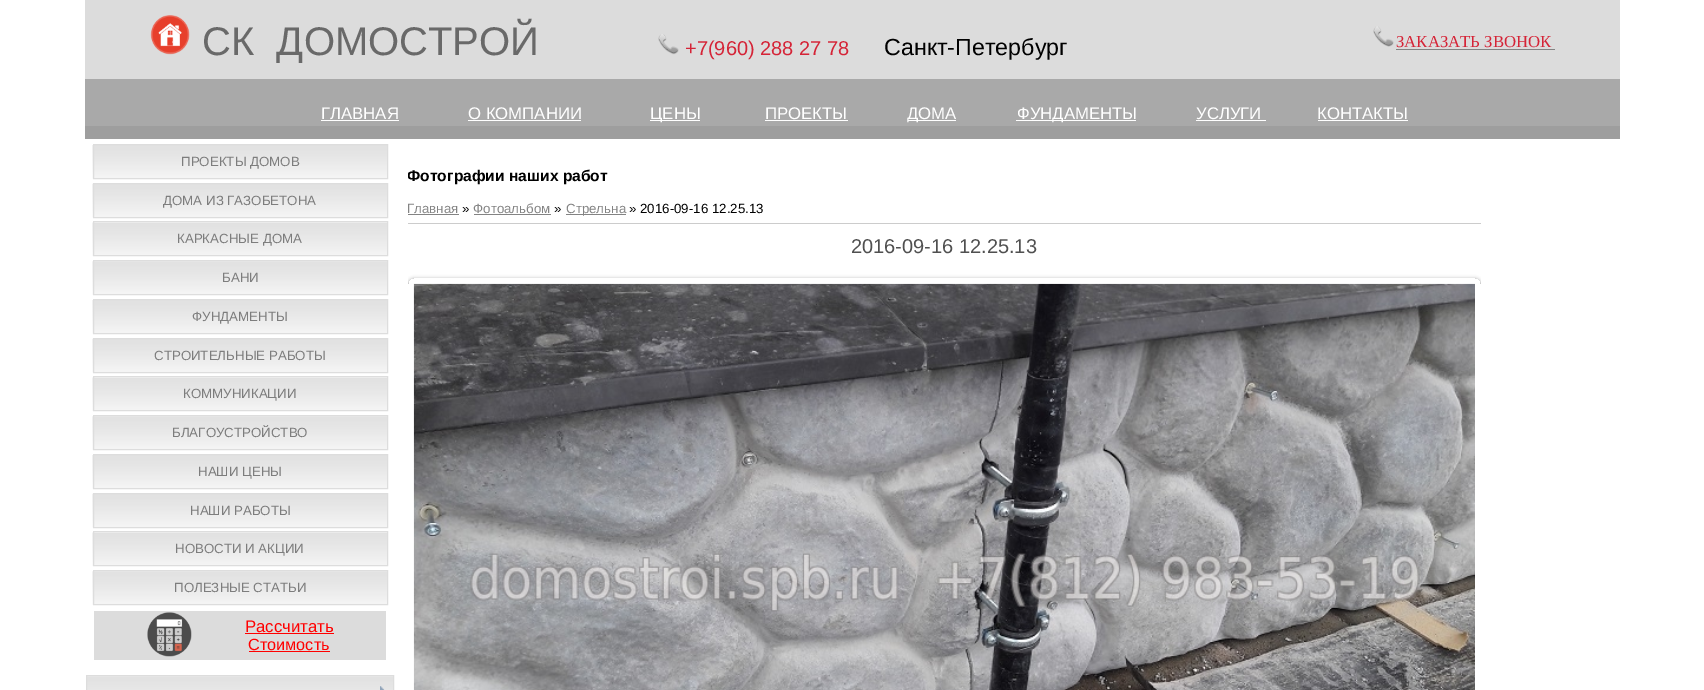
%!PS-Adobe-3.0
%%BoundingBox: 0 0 1704 690
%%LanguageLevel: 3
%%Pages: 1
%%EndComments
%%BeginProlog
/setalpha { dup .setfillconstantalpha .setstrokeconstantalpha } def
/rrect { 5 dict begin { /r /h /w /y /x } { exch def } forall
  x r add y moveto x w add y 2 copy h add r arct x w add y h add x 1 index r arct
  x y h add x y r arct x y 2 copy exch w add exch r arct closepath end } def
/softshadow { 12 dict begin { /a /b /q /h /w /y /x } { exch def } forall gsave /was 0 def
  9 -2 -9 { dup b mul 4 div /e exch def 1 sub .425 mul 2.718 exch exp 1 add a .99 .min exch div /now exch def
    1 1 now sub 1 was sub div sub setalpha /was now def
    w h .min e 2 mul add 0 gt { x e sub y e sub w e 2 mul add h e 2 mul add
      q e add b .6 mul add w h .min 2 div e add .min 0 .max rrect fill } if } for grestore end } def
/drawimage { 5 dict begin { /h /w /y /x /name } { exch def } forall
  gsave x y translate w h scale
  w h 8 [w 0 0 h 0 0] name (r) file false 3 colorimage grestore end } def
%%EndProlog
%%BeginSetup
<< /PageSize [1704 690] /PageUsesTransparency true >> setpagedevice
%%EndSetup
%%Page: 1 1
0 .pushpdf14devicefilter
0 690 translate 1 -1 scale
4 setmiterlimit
1 setgray
0 0 1704 690 rectfill
0.863 setgray
85 0 1535 79 rectfill
(images/1.raw) 150 15 40 40 drawimage
(images/2.raw) 658 34 21 21 drawimage
(images/3.raw) 1373 26 21 21 drawimage
0.514 setgray
1396 49 159 1 rectfill
0.663 setgray
85 79 1535 47 rectfill
1 setgray
321 120 78 1 rectfill
468 120 113 1 rectfill
650 120 50 1 rectfill
765 120 83 1 rectfill
908 120 48 1 rectfill
1016 120 120 1 rectfill
1196 120 70 1 rectfill
1318 120 90 1 rectfill
0.62 setgray
85 126 1535 13 rectfill
(images/4.raw) 92 145 295 34 drawimage
0.867 setgray
93.5 144.5 294 34 rectstroke
(images/5.raw) 92 183 295 35 drawimage
93.5 183.5 294 34 rectstroke
(images/6.raw) 92 222 295 34 drawimage
93.5 221.5 294 34 rectstroke
(images/7.raw) 92 261 295 34 drawimage
93.5 260.5 294 34 rectstroke
(images/4.raw) 92 300 295 34 drawimage
93.5 299.5 294 34 rectstroke
(images/5.raw) 92 338 295 35 drawimage
93.5 338.5 294 34 rectstroke
(images/6.raw) 92 377 295 34 drawimage
93.5 376.5 294 34 rectstroke
(images/7.raw) 92 416 295 34 drawimage
93.5 415.5 294 34 rectstroke
(images/4.raw) 92 455 295 34 drawimage
93.5 454.5 294 34 rectstroke
(images/5.raw) 92 493 295 35 drawimage
93.5 493.5 294 34 rectstroke
(images/6.raw) 92 532 295 34 drawimage
93.5 531.5 294 34 rectstroke
(images/7.raw) 92 571 295 34 drawimage
93.5 570.5 294 34 rectstroke
0.863 setgray
94 611 292 49 rectfill
(images/8.raw) 147 612 45 45 drawimage
1 0 0 setrgbcolor
245 633 89 1 rectfill
249 651 81 1 rectfill
(images/9.raw) 87 676 306 14 drawimage
0.867 setgray
86.5 675.5 307 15 rectstroke
(images/10.raw) 380 686 5 4 drawimage
0.514 setgray
408 214 51 1 rectfill
474 214 77 1 rectfill
566 214 60 1 rectfill
0.8 setgray
408 223 1073 1 rectfill
gsave
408 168 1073 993 rectclip
newpath 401 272 moveto 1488 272 lineto 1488 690 lineto 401 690 lineto closepath 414 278 moveto 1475 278 lineto 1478.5 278 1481 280.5 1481 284 curveto 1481 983 lineto 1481 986.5 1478.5 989 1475 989 curveto 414 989 lineto 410.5 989 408 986.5 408 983 curveto 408 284 lineto 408 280.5 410.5 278 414 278 curveto closepath eoclip newpath
0 setgray
408 279 1073 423 6 2 0.37 softshadow
grestore
(images/11.raw) 413 283 1062 407 drawimage
/LiberationSans-Regular [40 0 0 -40 0 0] selectfont
0.412 setgray
202 55 moveto (СК  ДОМОСТРОЙ) show
/LiberationSans-Regular [20 0 0 -20 0 0] selectfont
0.835 0.141 0.216 setrgbcolor
685 55 moveto (+7\(960\) 288 27 78) show
/LiberationSans-Regular [23.25 0 0 -23.25 0 0] selectfont
0 setgray
884 55 moveto (Санкт-Петербург) show
/LiberationSerif-Regular [16.75 0 0 -16.75 0 0] selectfont
0.835 0.141 0.216 setrgbcolor
1396 47 moveto (ЗАКАЗАТЬ ЗВОНОК) show
/LiberationSans-Regular [16.75 0 0 -16.75 0 0] selectfont
1 setgray
321 119 moveto (ГЛАВНАЯ) show
468 119 moveto (О КОМПАНИИ) show
650 119 moveto (ЦЕНЫ) show
765 119 moveto (ПРОЕКТЫ) show
907 119 moveto (ДОМА) show
1017 119 moveto (ФУНДАМЕНТЫ) show
1196 119 moveto (УСЛУГИ) show
1317 119 moveto (КОНТАКТЫ) show
/LiberationSans-Regular [13.3 0 0 -13.3 0 0] selectfont
0.49 setgray
181 166 moveto (ПРОЕКТЫ ДОМОВ) show
163 205 moveto (ДОМА ИЗ ГАЗОБЕТОНА) show
177 243 moveto (КАРКАСНЫЕ ДОМА) show
222 282 moveto (БАНИ) show
192 321 moveto (ФУНДАМЕНТЫ) show
154 360 moveto (СТРОИТЕЛЬНЫЕ РАБОТЫ) show
183 398 moveto (КОММУНИКАЦИИ) show
172 437 moveto (БЛАГОУСТРОЙСТВО) show
198 476 moveto (НАШИ ЦЕНЫ) show
190 515 moveto (НАШИ РАБОТЫ) show
175 553 moveto (НОВОСТИ И АКЦИИ) show
174 592 moveto (ПОЛЕЗНЫЕ СТАТЬИ) show
/LiberationSans-Regular [16.75 0 0 -16.75 0 0] selectfont
1 0 0 setrgbcolor
245 632 moveto (Рассчитать) show
/LiberationSans-Regular [16.25 0 0 -16.25 0 0] selectfont
248 650 moveto (Стоимость) show
gsave
408 168 1073 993 rectclip
/LiberationSans-Bold [15.6 0 0 -15.6 0 0] selectfont
0 setgray
407 181 moveto (Фотографии наших работ) show
grestore
/LiberationSans-Regular [13.3 0 0 -13.3 0 0] selectfont
0.514 setgray
407 213 moveto (Главная) show
0 setgray
462 213 moveto (») show
0.514 setgray
473 213 moveto (Фотоальбом) show
0 setgray
554 213 moveto (») show
0.514 setgray
566 213 moveto (Стрельна) show
0 setgray
629 213 moveto (» 2016-09-16 12.25.13) show
/LiberationSans-Regular [20 0 0 -20 0 0] selectfont
0.314 setgray
851 253 moveto (2016-09-16 12.25.13) show
.poppdf14devicefilter showpage
%%EOF
